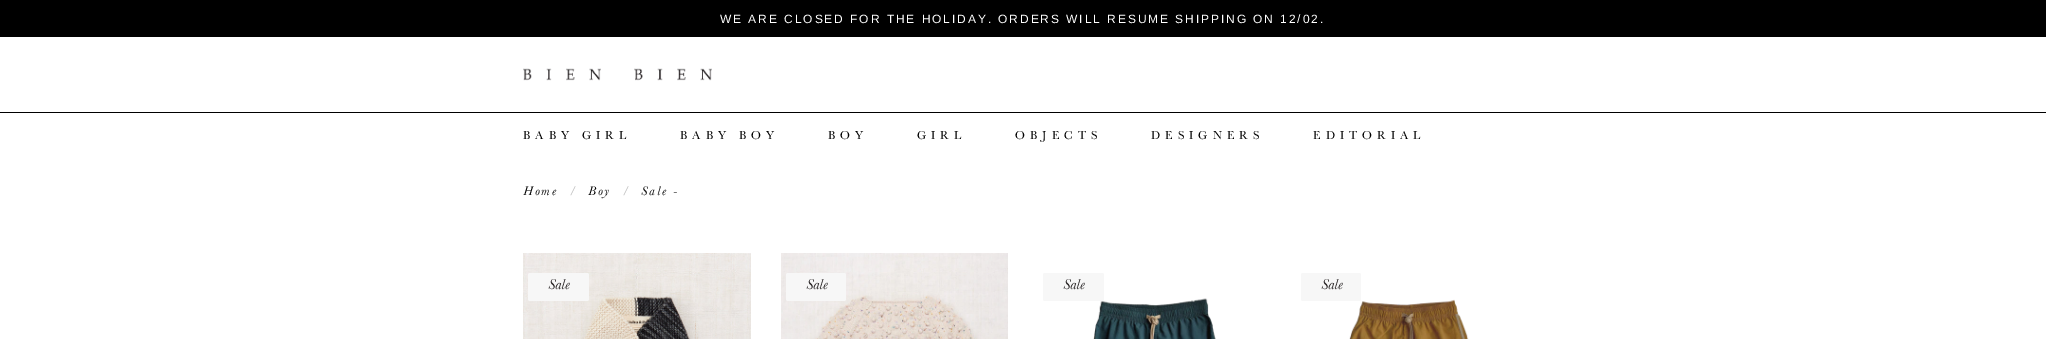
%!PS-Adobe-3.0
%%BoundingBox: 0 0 2046 339
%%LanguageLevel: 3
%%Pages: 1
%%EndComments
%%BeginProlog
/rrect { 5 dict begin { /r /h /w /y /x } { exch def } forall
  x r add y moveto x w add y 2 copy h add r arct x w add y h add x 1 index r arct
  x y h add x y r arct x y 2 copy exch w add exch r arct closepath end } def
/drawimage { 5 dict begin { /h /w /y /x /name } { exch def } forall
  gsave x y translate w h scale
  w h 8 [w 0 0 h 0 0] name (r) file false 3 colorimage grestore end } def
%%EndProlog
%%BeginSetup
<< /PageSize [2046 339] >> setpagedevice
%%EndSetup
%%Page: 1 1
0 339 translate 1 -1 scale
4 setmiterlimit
1 setgray
0 0 2046 339 rectfill
0 setgray
0 0 2046 37 rectfill
(images/1.raw) 523 68 189 13 drawimage
0 112 2046 1 rectfill
(images/2.raw) 523 253 228 86 drawimage
0.969 setgray
528 273 61 28 2 rrect fill
(images/3.raw) 781 253 227 86 drawimage
786 273 60 28 2 rrect fill
(images/4.raw) 1093 298 123 41 drawimage
1043 273 61 28 2 rrect fill
(images/5.raw) 1349 299 120 40 drawimage
1301 273 60 28 2 rrect fill
/LiberationSans-Regular [12 0 0 -12 0 0] selectfont
1 setgray
720 23 moveto 1.92 0 (WE ARE CLOSED FOR THE HOLIDAY. ORDERS WILL RESUME SHIPPING ON 12/02.) ashow
/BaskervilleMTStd-Regular [12 0 0 -12 0 0] selectfont
0 setgray
523 139 moveto 5 0 (BABY GIRL) ashow
680 139 moveto 5 0 (BABY BOY) ashow
828 139 moveto 5 0 (BOY) ashow
917 139 moveto 5 0 (GIRL) ashow
1015 139 moveto 5 0 (OBJECTS) ashow
1151 139 moveto 5 0 (DESIGNERS) ashow
1313 139 moveto 5 0 (EDITORIAL) ashow
/BaskervilleMTStd-Italic [13 0 0 -13 0 0] selectfont
523 195 moveto 2 0 (Home) ashow
0.733 setgray
569 195 moveto 2 0 (/) ashow
0 setgray
588 195 moveto 2 0 (Boy) ashow
0.733 setgray
622 195 moveto 2 0 (/) ashow
0 setgray
641 195 moveto 2 0 (Sale -) ashow
/BaskervilleMTStd-Italic [15 0 0 -15 0 0] selectfont
0.137 0.122 0.125 setrgbcolor
548 289 moveto (Sale) show
806 289 moveto (Sale) show
1063 289 moveto (Sale) show
1321 289 moveto (Sale) show
showpage
%%EOF
